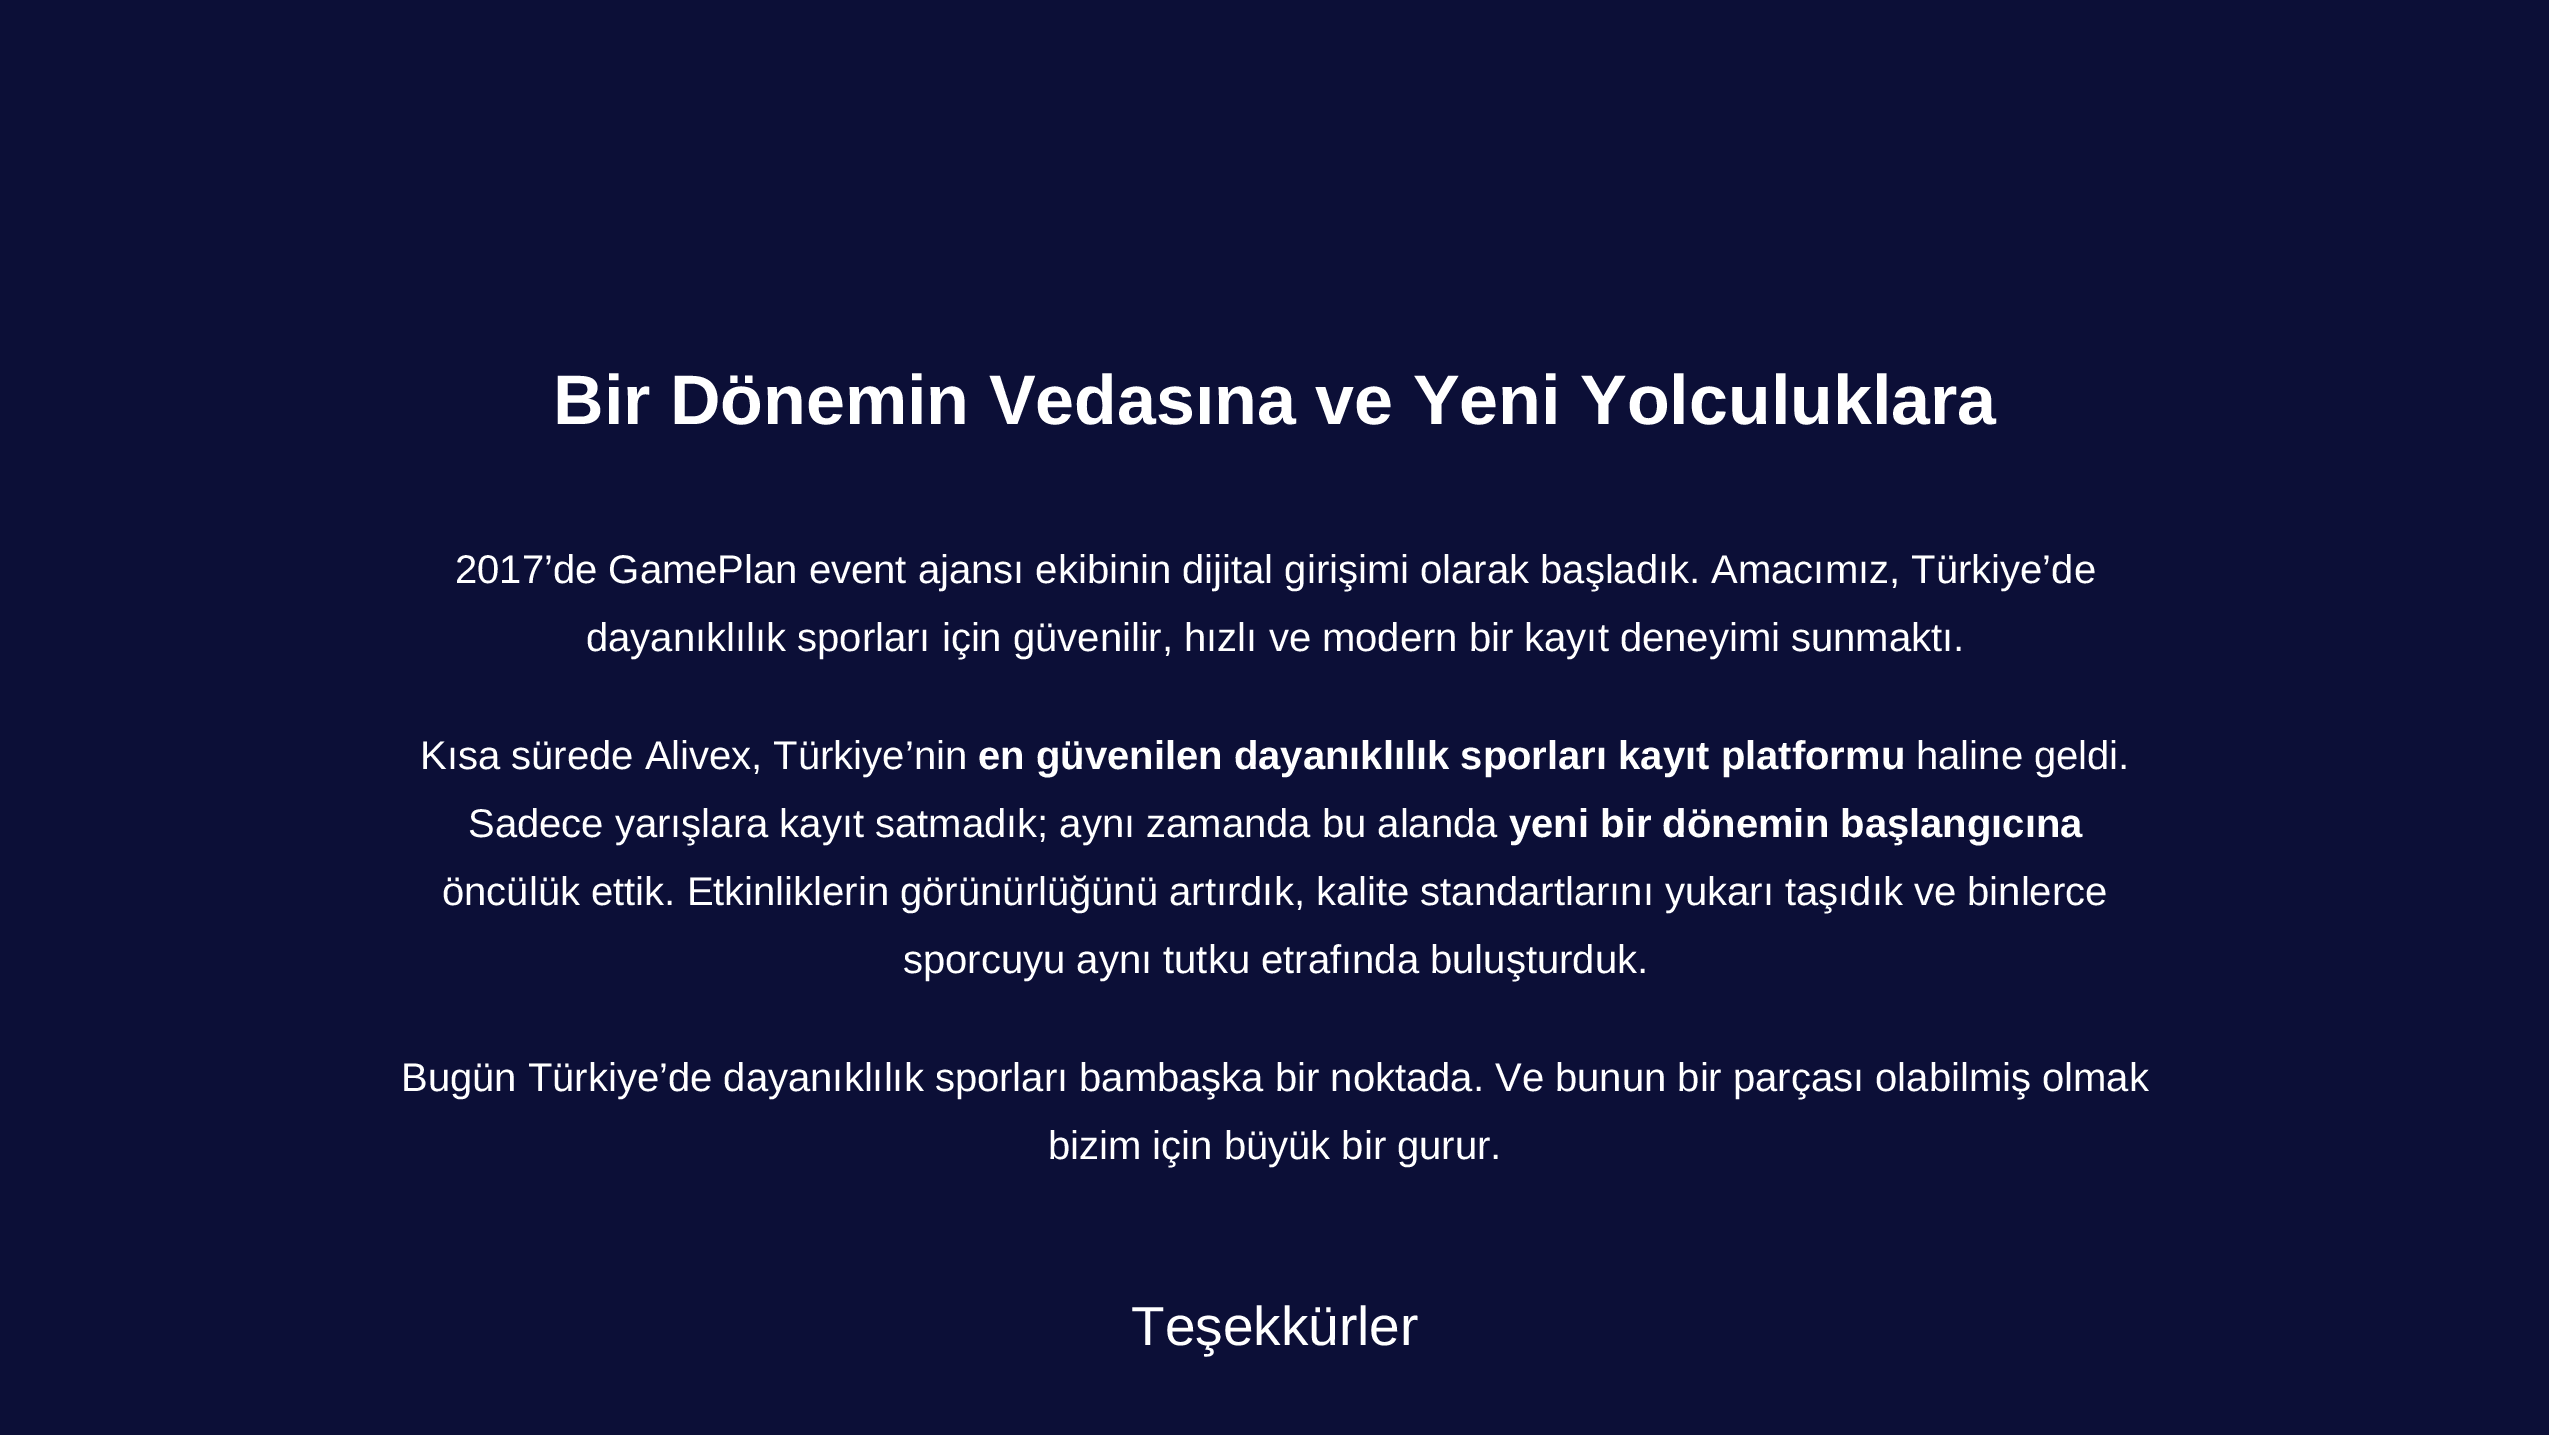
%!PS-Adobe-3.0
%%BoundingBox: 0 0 2549 1435
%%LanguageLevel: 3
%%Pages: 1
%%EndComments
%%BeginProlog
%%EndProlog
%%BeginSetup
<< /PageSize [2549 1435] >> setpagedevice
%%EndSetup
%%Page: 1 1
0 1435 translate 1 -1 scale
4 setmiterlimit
0.047 0.059 0.216 setrgbcolor
0 0 2549 1435 rectfill
/LiberationSans-Bold [70 0 0 -70 0 0] selectfont
1 setgray
553 424 moveto (Bir Dönemin Vedasına ve Yeni Yolculuklara) show
/LiberationSans-Regular [40 0 0 -40 0 0] selectfont
455 583 moveto (2017’de GamePlan event ajansı ekibinin dijital girişimi olarak başladık. Amacımız, Türkiye’de) show
586 651 moveto (dayanıklılık sporları için güvenilir, hızlı ve modern bir kayıt deneyimi sunmaktı.) show
420 769 moveto (Kısa sürede Alivex, Türkiye’nin) show
/LiberationSans-Bold [40 0 0 -40 0 0] selectfont
978 769 moveto (en güvenilen dayanıklılık sporları kayıt platformu) show
/LiberationSans-Regular [40 0 0 -40 0 0] selectfont
1916 769 moveto (haline geldi.) show
468 837 moveto (Sadece yarışlara kayıt satmadık; aynı zamanda bu alanda) show
/LiberationSans-Bold [40 0 0 -40 0 0] selectfont
1509 837 moveto (yeni bir dönemin başlangıcına) show
/LiberationSans-Regular [40 0 0 -40 0 0] selectfont
442 905 moveto (öncülük ettik. Etkinliklerin görünürlüğünü artırdık, kalite standartlarını yukarı taşıdık ve binlerce) show
903 973 moveto (sporcuyu aynı tutku etrafında buluşturduk.) show
401 1091 moveto (Bugün Türkiye’de dayanıklılık sporları bambaşka bir noktada. Ve bunun bir parçası olabilmiş olmak) show
1048 1159 moveto (bizim için büyük bir gurur.) show
/LiberationSans-Regular [55 0 0 -55 0 0] selectfont
1131 1345 moveto (Teşekkürler) show
showpage
%%EOF
